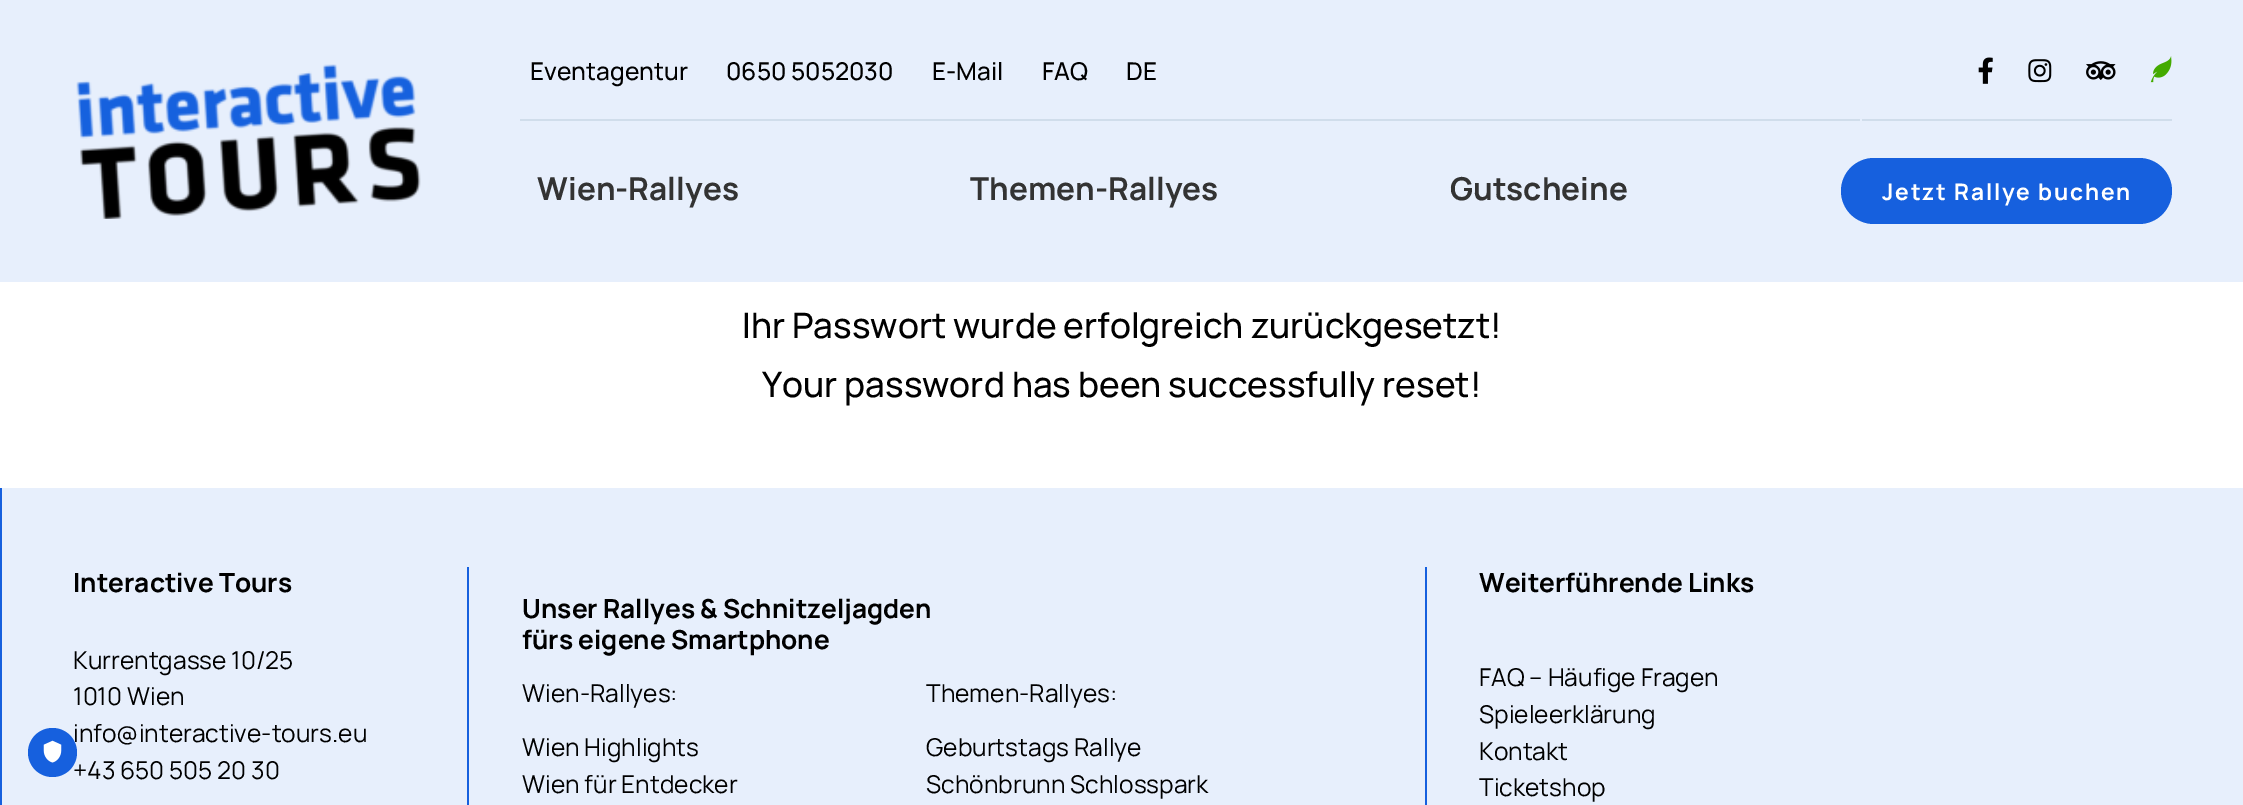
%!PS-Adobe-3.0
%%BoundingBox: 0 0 2243 805
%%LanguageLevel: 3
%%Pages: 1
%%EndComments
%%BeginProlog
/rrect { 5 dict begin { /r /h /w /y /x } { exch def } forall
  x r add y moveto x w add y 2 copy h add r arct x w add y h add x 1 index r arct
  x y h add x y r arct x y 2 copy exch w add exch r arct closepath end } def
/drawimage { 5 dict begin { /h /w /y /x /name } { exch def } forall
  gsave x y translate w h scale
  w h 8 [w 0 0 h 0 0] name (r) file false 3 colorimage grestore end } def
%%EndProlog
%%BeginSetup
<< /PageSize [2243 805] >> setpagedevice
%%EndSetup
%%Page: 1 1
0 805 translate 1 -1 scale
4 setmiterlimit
1 setgray
0 0 2243 805 rectfill
0.906 0.937 0.988 setrgbcolor
0 0 2243 282 rectfill
(images/2.raw) 76 64 345 155 drawimage
0.816 0.867 0.922 setrgbcolor
520 119 1340 2 rectfill
1862 119 310 2 rectfill
(images/3.raw) 1978 57 15 27 drawimage
(images/4.raw) 2028 59 24 24 drawimage
(images/5.raw) 2086 61 30 19 drawimage
(images/6.raw) 2150 56 22 27 drawimage
0.086 0.376 0.871 setrgbcolor
1841 158 331 66 33 rrect fill
0.906 0.937 0.988 setrgbcolor
2 488 2241 317 rectfill
0.086 0.376 0.871 setrgbcolor
0 488 2 317 rectfill
467 567 2 238 rectfill
1425 567 2 238 rectfill
/Manrope-Medium [24.5 0 0 -24.5 0 0] selectfont
0 setgray
530 80 moveto (Eventagentur) show
726 80 moveto (0650 5052030) show
932 80 moveto (E-Mail) show
1042 80 moveto (FAQ) show
1126 80 moveto (DE) show
/Manrope-Bold [31.5 0 0 -31.5 0 0] selectfont
0.2 setgray
537 200 moveto (Wien-Rallyes) show
970 200 moveto (Themen-Rallyes) show
1450 200 moveto (Gutscheine) show
/Manrope-Bold [22.75 0 0 -22.75 0 0] selectfont
1 setgray
1882 200 moveto 1.75 0 (Jetzt Rallye buchen) ashow
/Manrope-Medium [35 0 0 -35 0 0] selectfont
0 setgray
742 338 moveto (Ihr Passwort wurde erfolgreich zurückgesetzt!) show
762 397 moveto (Your password has been successfully reset!) show
/Manrope-Bold [26.25 0 0 -26.25 0 0] selectfont
73 592 moveto (Interactive Tours) show
/Manrope-Regular [24.5 0 0 -24.5 0 0] selectfont
73 669 moveto (Kurrentgasse 10/25) show
73 705 moveto (1010 Wien) show
73 742 moveto (info@interactive-tours.eu) show
73 779 moveto (+43 650 505 20 30) show
0.086 0.376 0.871 setrgbcolor
newpath 52.5 752.5 24.5 0 360 arc closepath fill
(images/1.raw) 43 740 19 23 drawimage
/Manrope-Bold [26.25 0 0 -26.25 0 0] selectfont
0 setgray
522 618 moveto (Unser Rallyes & Schnitzeljagden) show
522 649 moveto (fürs eigene Smartphone) show
/Manrope-Regular [24.5 0 0 -24.5 0 0] selectfont
522 702 moveto (Wien-Rallyes:) show
522 756 moveto (Wien Highlights) show
522 793 moveto (Wien für Entdecker) show
926 702 moveto (Themen-Rallyes:) show
926 756 moveto (Geburtstags Rallye) show
926 793 moveto (Schönbrunn Schlosspark) show
/Manrope-Bold [26.25 0 0 -26.25 0 0] selectfont
1479 592 moveto (Weiterführende Links) show
/Manrope-Regular [24.5 0 0 -24.5 0 0] selectfont
1479 686 moveto (FAQ – Häufige Fragen) show
1479 723 moveto (Spieleerklärung) show
1479 760 moveto (Kontakt) show
1479 796 moveto (Ticketshop) show
showpage
%%EOF
